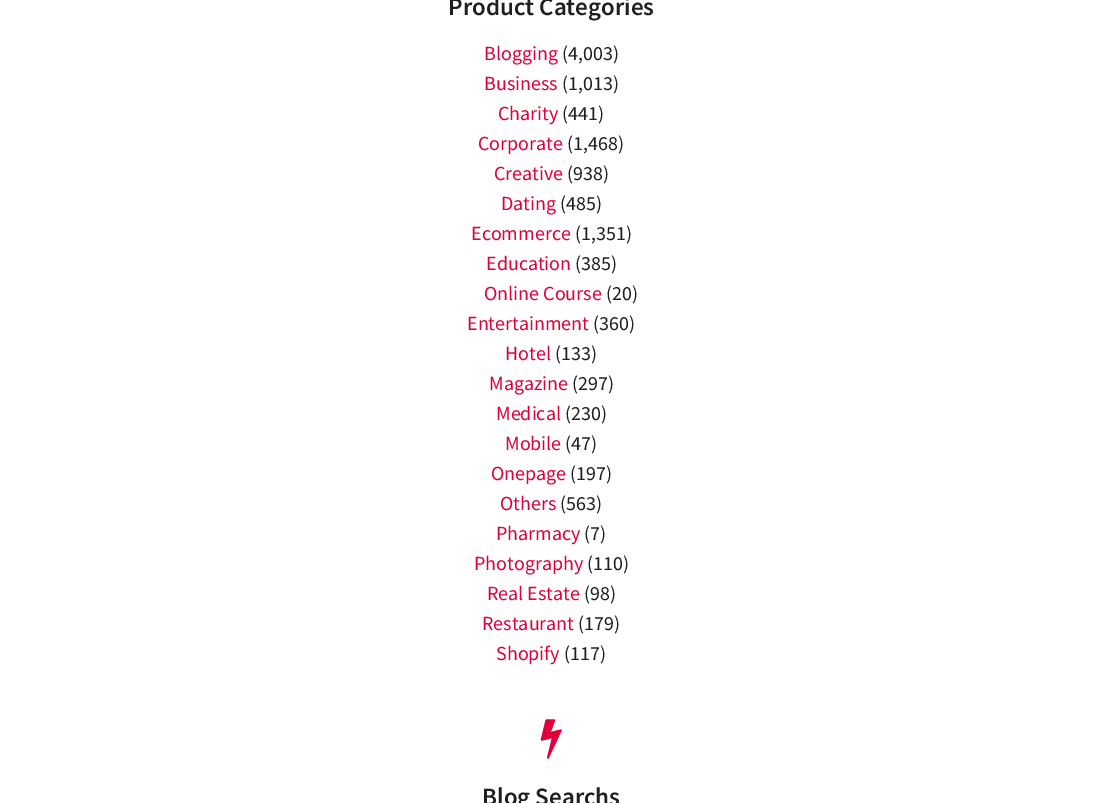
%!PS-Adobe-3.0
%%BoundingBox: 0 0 1102 803
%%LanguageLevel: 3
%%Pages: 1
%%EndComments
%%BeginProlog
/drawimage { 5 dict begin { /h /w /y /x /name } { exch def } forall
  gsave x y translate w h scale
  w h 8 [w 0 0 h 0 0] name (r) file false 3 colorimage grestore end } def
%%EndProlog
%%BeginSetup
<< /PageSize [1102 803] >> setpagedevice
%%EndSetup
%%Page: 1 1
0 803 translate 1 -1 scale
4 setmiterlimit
1 setgray
0 0 1102 803 rectfill
(images/1.raw) 540 719 22 40 drawimage
/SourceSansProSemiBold-SemiBold [25 0 0 -25 0 0] selectfont
0.122 setgray
448 15 moveto (Product Categories) show
/SourceSansPro-Regular [20 0 0 -20 0 0] selectfont
0.875 0 0.231 setrgbcolor
484 60 moveto (Blogging) show
0.122 setgray
562 60 moveto (\(4,003\)) show
0.875 0 0.231 setrgbcolor
484 90 moveto (Business) show
0.122 setgray
562 90 moveto (\(1,013\)) show
0.875 0 0.231 setrgbcolor
498 120 moveto (Charity) show
0.122 setgray
562 120 moveto (\(441\)) show
0.875 0 0.231 setrgbcolor
478 150 moveto (Corporate) show
0.122 setgray
567 150 moveto (\(1,468\)) show
0.875 0 0.231 setrgbcolor
494 180 moveto (Creative) show
0.122 setgray
567 180 moveto (\(938\)) show
0.875 0 0.231 setrgbcolor
501 210 moveto (Dating) show
0.122 setgray
560 210 moveto (\(485\)) show
0.875 0 0.231 setrgbcolor
471 240 moveto (Ecommerce) show
0.122 setgray
575 240 moveto (\(1,351\)) show
0.875 0 0.231 setrgbcolor
486 270 moveto (Education) show
0.122 setgray
575 270 moveto (\(385\)) show
0.875 0 0.231 setrgbcolor
484 300 moveto (Online Course) show
0.122 setgray
606 300 moveto (\(20\)) show
0.875 0 0.231 setrgbcolor
467 330 moveto (Entertainment) show
0.122 setgray
593 330 moveto (\(360\)) show
0.875 0 0.231 setrgbcolor
505 360 moveto (Hotel) show
0.122 setgray
555 360 moveto (\(133\)) show
0.875 0 0.231 setrgbcolor
489 390 moveto (Magazine) show
0.122 setgray
572 390 moveto (\(297\)) show
0.875 0 0.231 setrgbcolor
496 420 moveto (Medical) show
0.122 setgray
565 420 moveto (\(230\)) show
0.875 0 0.231 setrgbcolor
505 450 moveto (Mobile) show
0.122 setgray
565 450 moveto (\(47\)) show
0.875 0 0.231 setrgbcolor
491 480 moveto (Onepage) show
0.122 setgray
570 480 moveto (\(197\)) show
0.875 0 0.231 setrgbcolor
500 510 moveto (Others) show
0.122 setgray
560 510 moveto (\(563\)) show
0.875 0 0.231 setrgbcolor
496 540 moveto (Pharmacy) show
0.122 setgray
584 540 moveto (\(7\)) show
0.875 0 0.231 setrgbcolor
474 570 moveto (Photography) show
0.122 setgray
587 570 moveto (\(110\)) show
0.875 0 0.231 setrgbcolor
487 600 moveto (Real Estate) show
0.122 setgray
584 600 moveto (\(98\)) show
0.875 0 0.231 setrgbcolor
482 630 moveto (Restaurant) show
0.122 setgray
578 630 moveto (\(179\)) show
0.875 0 0.231 setrgbcolor
496 660 moveto (Shopify) show
0.122 setgray
564 660 moveto (\(117\)) show
/SourceSansProSemiBold-SemiBold [25 0 0 -25 0 0] selectfont
482 805 moveto (Blog Searchs) show
showpage
%%EOF
